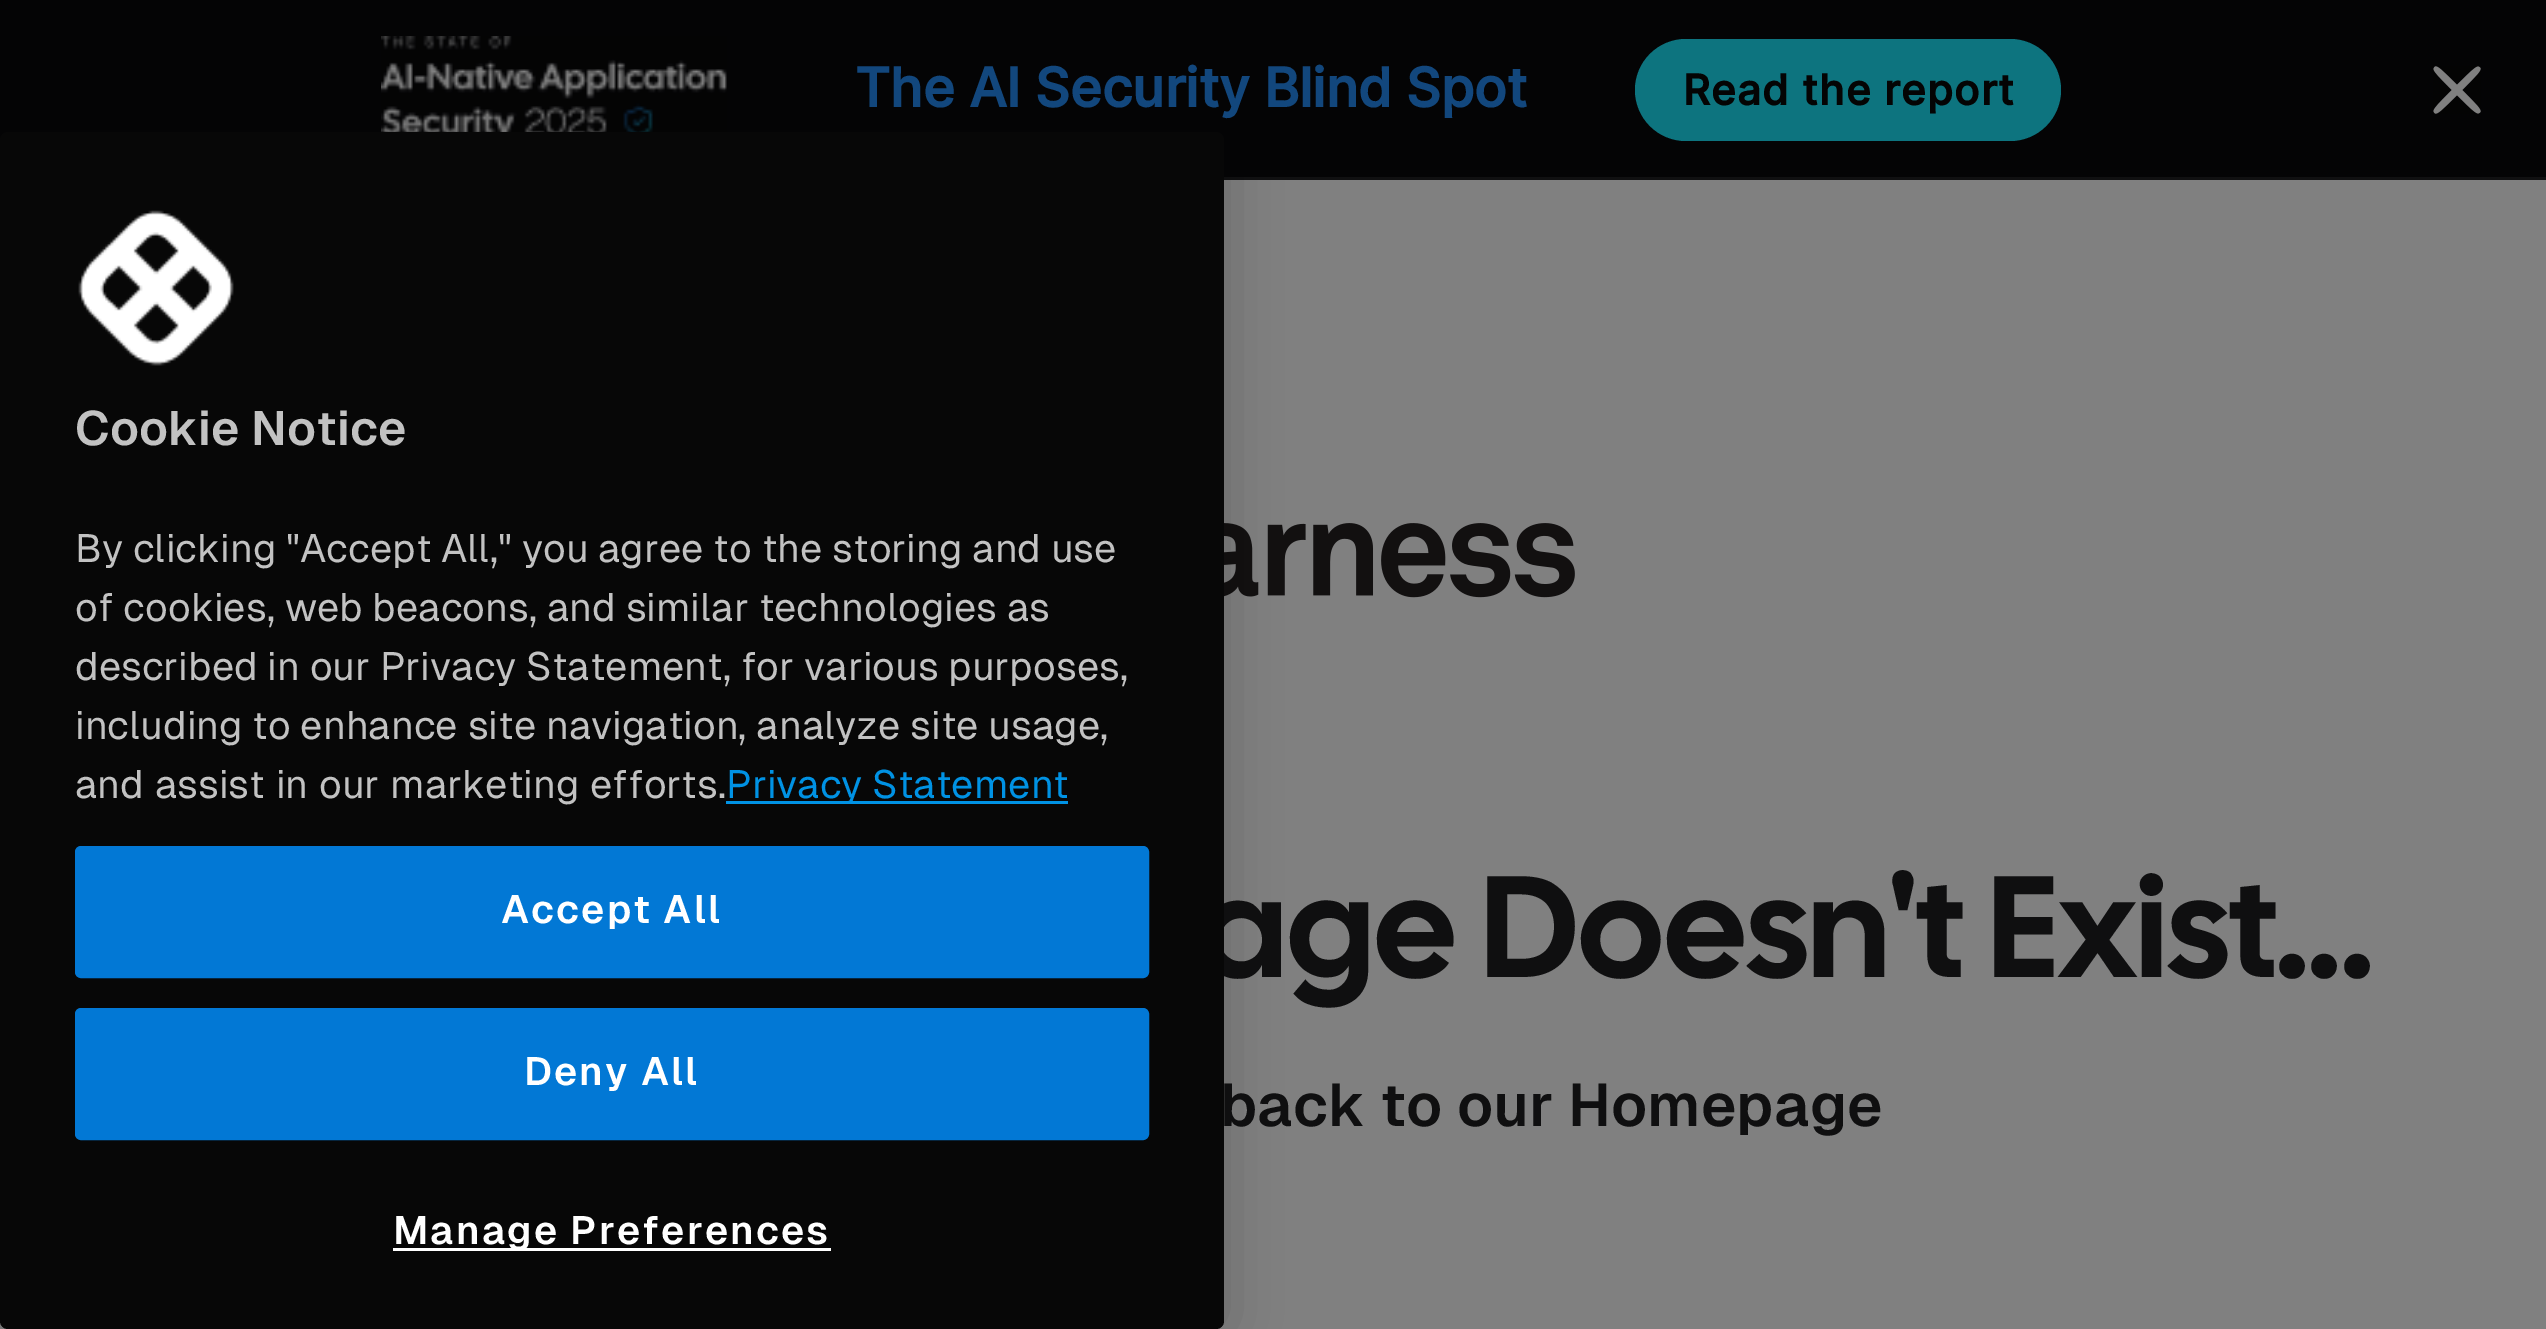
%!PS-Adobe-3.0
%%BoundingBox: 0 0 2546 1329
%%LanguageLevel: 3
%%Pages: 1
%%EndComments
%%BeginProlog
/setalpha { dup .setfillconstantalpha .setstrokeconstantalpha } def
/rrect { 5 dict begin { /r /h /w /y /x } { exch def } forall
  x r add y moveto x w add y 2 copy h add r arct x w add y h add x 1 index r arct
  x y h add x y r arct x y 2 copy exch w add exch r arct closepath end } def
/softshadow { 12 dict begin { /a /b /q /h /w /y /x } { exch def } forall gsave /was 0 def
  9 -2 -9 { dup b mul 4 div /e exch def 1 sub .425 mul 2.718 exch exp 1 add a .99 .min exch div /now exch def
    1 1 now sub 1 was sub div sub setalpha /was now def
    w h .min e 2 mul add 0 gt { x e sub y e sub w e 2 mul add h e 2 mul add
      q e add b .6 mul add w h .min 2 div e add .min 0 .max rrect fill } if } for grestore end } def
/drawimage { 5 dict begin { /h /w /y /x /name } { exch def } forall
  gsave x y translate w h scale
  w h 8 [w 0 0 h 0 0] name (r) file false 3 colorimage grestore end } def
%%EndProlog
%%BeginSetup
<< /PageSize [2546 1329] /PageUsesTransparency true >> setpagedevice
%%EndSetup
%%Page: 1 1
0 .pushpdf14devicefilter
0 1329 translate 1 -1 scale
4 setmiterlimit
0.502 setgray
0 0 2546 1329 rectfill
0.016 0.016 0.02 setrgbcolor
0 0 2546 177 rectfill
0.063 0.063 0.067 setrgbcolor
1224 177 1322 3 rectfill
(images/1.raw) 381 36 346 96 drawimage
0.051 0.455 0.498 setrgbcolor
1635 39 426 102 51 rrect fill
(images/2.raw) 2433 66 48 48 drawimage
(images/4.raw) 1224 523 351 75 drawimage
0 setgray
0 132 1224 1197 8 27 0.2 softshadow
/Inter-Bold [54 0 0 -54 0 0] selectfont
0.071 0.278 0.49 setrgbcolor
855 107 moveto (The AI Security Blind Spot) show
/Inter-Bold [42 0 0 -42 0 0] selectfont
0.016 setgray
1683 105 moveto 1.25 0 (Read the report) ashow
/CalSans-SemiBold [144 0 0 -144 0 0] selectfont
0.059 0.059 0.063 setrgbcolor
1198 977 moveto (age Doesn't Exist...) show
/Geist-SemiBold [60 0 0 -60 0 0] selectfont
1220 1126 moveto (back to our Homepage) show
0.027 setgray
0 132 1224 1197 8 rrect fill
1 setgray
393 1248 438 3 rectfill
/Geist-SemiBold [39.35 0 0 -39.35 0 0] selectfont
393 1244 moveto 2 0 (Manage Preferences) ashow
0.008 0.471 0.835 setrgbcolor
76.5 1009.5 1071 129 4.5 rrect gsave fill grestore
3 setlinewidth
stroke
1 setgray
524 1085 moveto 2 0 (Deny All) ashow
0.008 0.471 0.835 setrgbcolor
76.5 847.5 1071 129 4.5 rrect gsave fill grestore
stroke
1 setgray
501 923 moveto 2 0 (Accept All) ashow
(images/3.raw) 78 210 156 156 drawimage
0 0.573 0.894 setrgbcolor
726 801 342 3 rectfill
/Geist-Regular [39.35 0 0 -39.35 0 0] selectfont
726 798 moveto (Privacy Statement) show
0.761 setgray
75 798 moveto 1 0 32 (and assist in our marketing efforts.) widthshow
75 739 moveto (including to enhance site navigation, analyze site usage,) show
75 680 moveto (described in our Privacy Statement, for various purposes,) show
75 621 moveto (of cookies, web beacons, and similar technologies as) show
75 562 moveto (By clicking "Accept All," you agree to the storing and use) show
/Geist-SemiBold [48 0 0 -48 0 0] selectfont
75 445 moveto (Cookie Notice) show
.poppdf14devicefilter showpage
%%EOF
